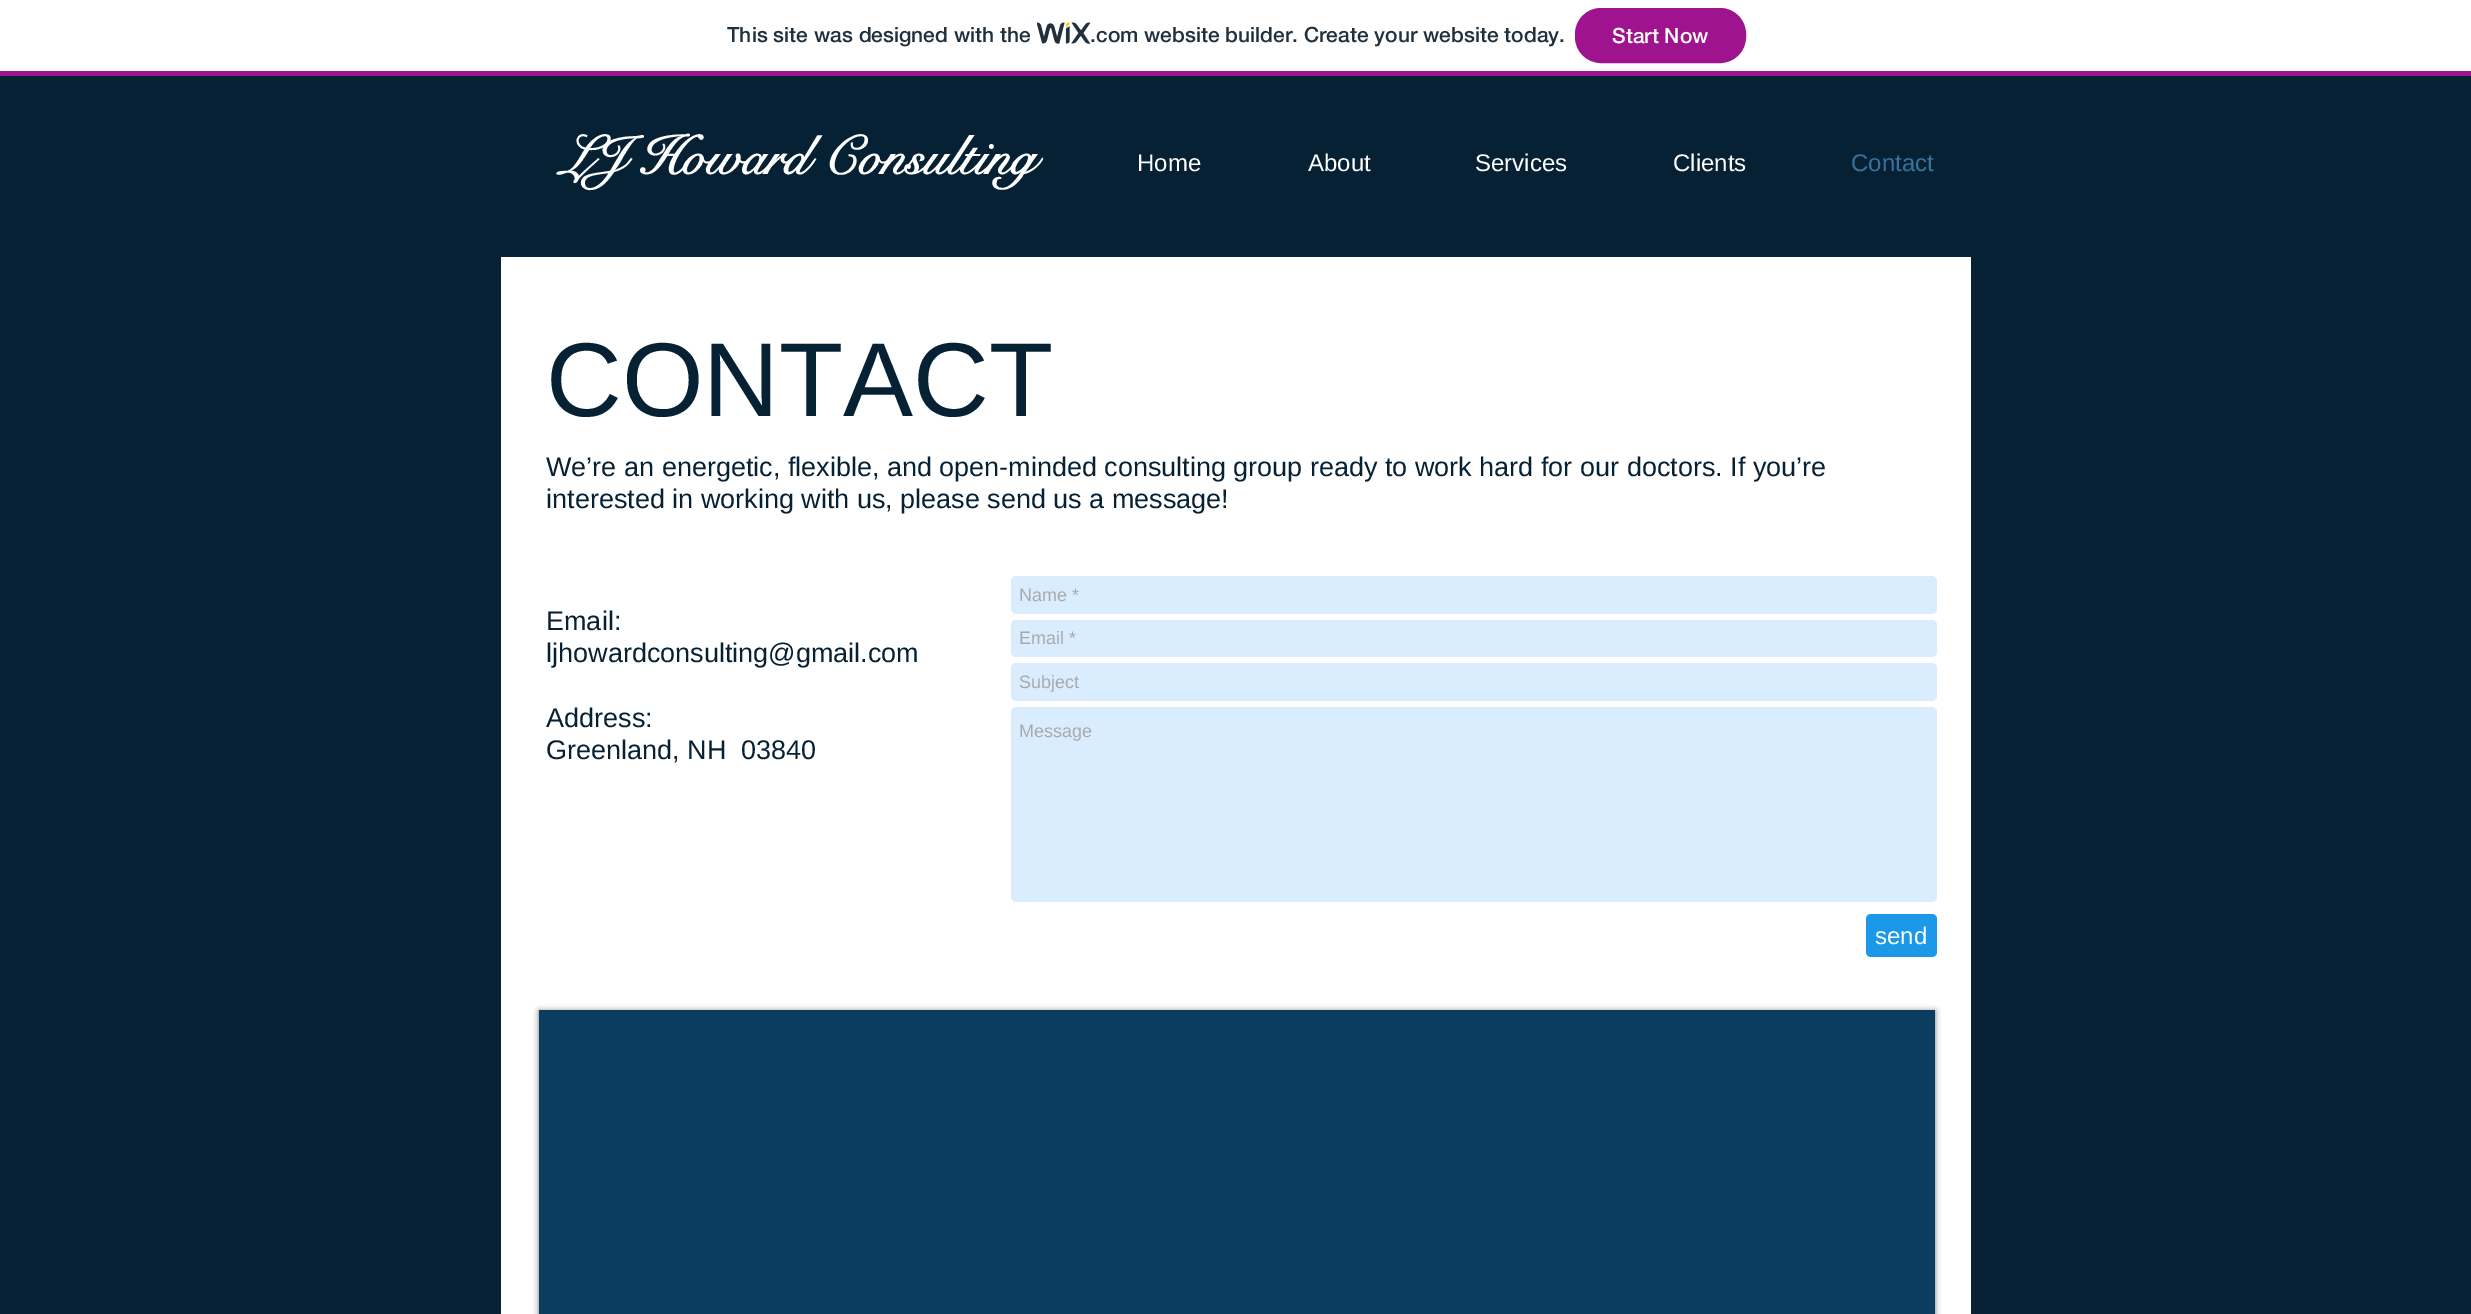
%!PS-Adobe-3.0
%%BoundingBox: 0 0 2471 1314
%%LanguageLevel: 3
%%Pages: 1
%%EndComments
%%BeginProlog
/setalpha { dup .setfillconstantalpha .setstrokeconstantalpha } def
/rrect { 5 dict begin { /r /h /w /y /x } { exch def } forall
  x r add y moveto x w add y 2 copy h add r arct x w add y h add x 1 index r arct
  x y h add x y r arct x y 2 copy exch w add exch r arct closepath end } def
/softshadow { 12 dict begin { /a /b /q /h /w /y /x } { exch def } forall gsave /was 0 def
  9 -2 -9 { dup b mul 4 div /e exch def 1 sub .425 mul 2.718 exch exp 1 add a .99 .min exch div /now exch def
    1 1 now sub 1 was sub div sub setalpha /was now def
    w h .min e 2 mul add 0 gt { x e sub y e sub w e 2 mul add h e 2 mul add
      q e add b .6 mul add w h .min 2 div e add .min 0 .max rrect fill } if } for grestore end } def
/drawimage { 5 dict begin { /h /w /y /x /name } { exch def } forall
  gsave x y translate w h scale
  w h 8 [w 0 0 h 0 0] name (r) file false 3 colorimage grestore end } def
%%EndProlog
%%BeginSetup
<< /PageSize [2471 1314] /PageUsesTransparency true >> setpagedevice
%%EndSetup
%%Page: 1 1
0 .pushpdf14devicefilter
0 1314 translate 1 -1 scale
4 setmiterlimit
1 setgray
0 0 2471 1314 rectfill
0.627 0.075 0.557 setrgbcolor
0 71 2471 5 rectfill
(images/1.raw) 1037 22 54 22 drawimage
1576 9 169 53 25 rrect gsave fill grestore
2 setlinewidth
stroke
0.024 0.129 0.204 setrgbcolor
0 76 2471 1238 rectfill
1 setgray
501 257 1470 1057 rectfill
0.855 0.929 1 setrgbcolor
1011 576 926 38 5 rrect fill
1011 620 926 37 5 rrect fill
1011 663 926 38 5 rrect fill
1011 707 926 195 5 rrect fill
0.106 0.6 0.91 setrgbcolor
1866 914 71 43 5 rrect fill
0 setgray
539 1011 1396 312 0 3 0.6 softshadow
0.047 0.235 0.376 setrgbcolor
539 1010 1396 304 rectfill
/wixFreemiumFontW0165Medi-Medium [21 0 0 -21 0 0] selectfont
0.125 0.188 0.235 setrgbcolor
727 42 moveto (This site was designed with the) show
1090 42 moveto (.com website builder. Create your website today.) show
1 setgray
1612 43 moveto (Start Now) show
/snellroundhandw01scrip-Bold [54 0 0 -54 0 0] selectfont
561 174 moveto (LJ Howard Consulting) show
/LiberationSans-Regular [24 0 0 -24 0 0] selectfont
1137 171 moveto (Home) show
1308 171 moveto (About) show
1475 171 moveto (Services) show
1673 171 moveto (Clients) show
0.224 0.447 0.608 setrgbcolor
1851 171 moveto (Contact) show
/LiberationSans-Regular [105 0 0 -105 0 0] selectfont
0.024 0.129 0.204 setrgbcolor
546 416 moveto (CONTACT) show
/LiberationSans-Regular [27 0 0 -27 0 0] selectfont
546 476 moveto (We’re an energetic, flexible, and open-minded consulting group ready to work hard for our doctors. If you’re) show
546 508 moveto (interested in working with us, please send us a message!) show
546 630 moveto (Email:) show
546 662 moveto (ljhowardconsulting@gmail.com) show
546 727 moveto (Address:) show
546 759 moveto (Greenland, NH  03840) show
/LiberationSans-Regular [18 0 0 -18 0 0] selectfont
0.663 setgray
1019 601 moveto (Name *) show
1019 644 moveto (Email *) show
1019 688 moveto (Subject) show
1019 737 moveto (Message) show
/LiberationSans-Regular [24 0 0 -24 0 0] selectfont
1 setgray
1875 944 moveto (send) show
.poppdf14devicefilter showpage
%%EOF
